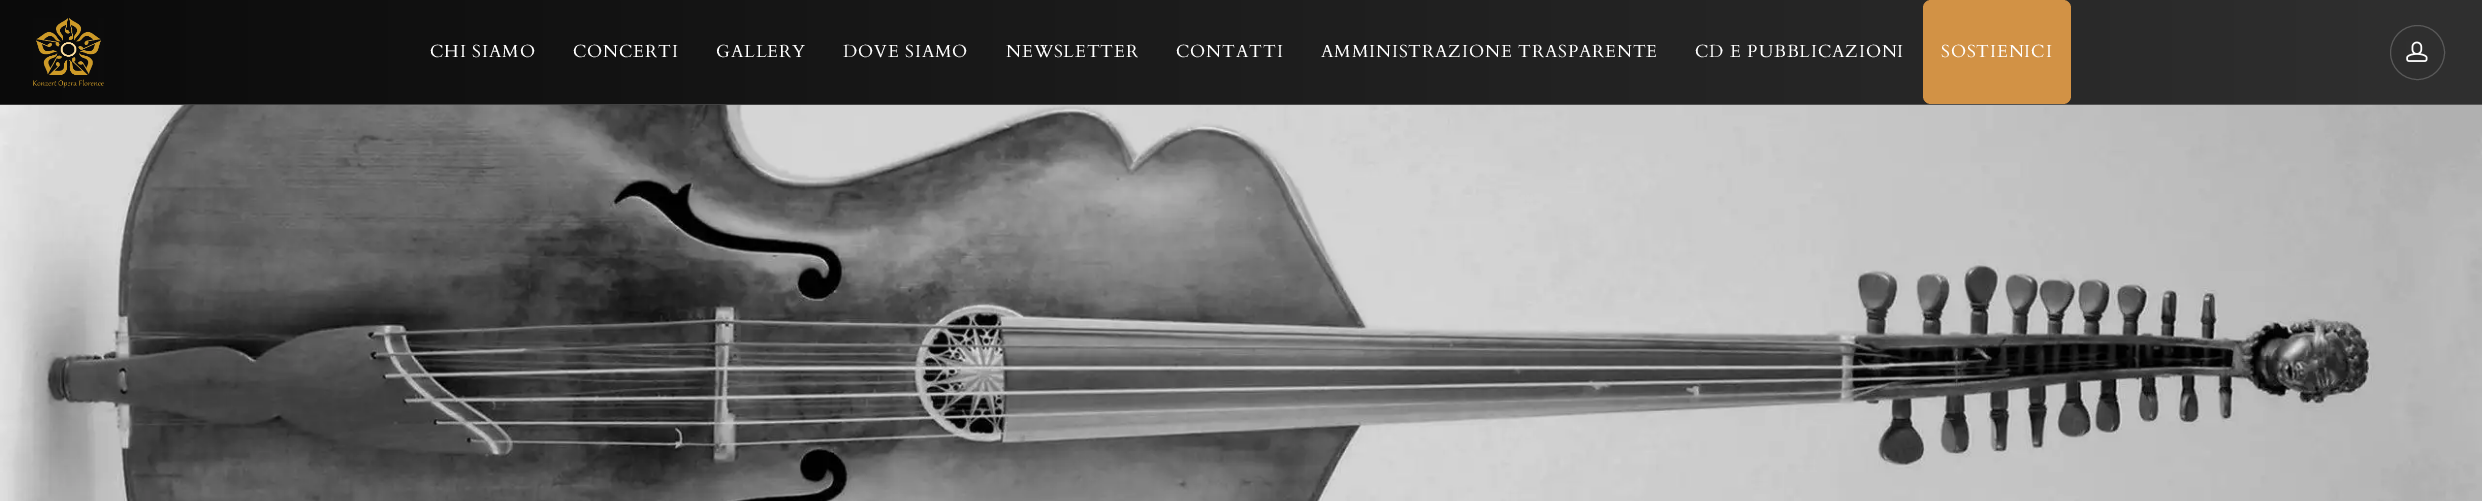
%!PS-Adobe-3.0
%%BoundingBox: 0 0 2482 501
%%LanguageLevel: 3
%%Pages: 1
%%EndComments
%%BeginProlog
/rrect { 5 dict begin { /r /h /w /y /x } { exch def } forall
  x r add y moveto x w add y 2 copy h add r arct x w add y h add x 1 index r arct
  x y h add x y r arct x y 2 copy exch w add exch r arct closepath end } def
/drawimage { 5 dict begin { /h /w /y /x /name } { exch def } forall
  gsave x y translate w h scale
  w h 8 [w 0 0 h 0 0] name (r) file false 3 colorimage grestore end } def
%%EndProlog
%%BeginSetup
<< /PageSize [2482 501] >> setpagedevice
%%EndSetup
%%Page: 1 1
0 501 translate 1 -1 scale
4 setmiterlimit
1 setgray
0 0 2482 501 rectfill
gsave newpath 0 0 moveto 2482 0 lineto 2482 104 lineto 0 104 lineto closepath clip newpath
<< /ShadingType 2 /ColorSpace /DeviceRGB /Coords [0 52 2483 52] /Extend [true true] /Function << /FunctionType 2 /Domain [0 1] /C0 [0.039 0.039 0.039] /C1 [0.188 0.188 0.188] /N 1 >> >> shfill grestore
gsave newpath 0 104 moveto 2482 104 lineto 2482 105 lineto 0 105 lineto closepath clip newpath
<< /ShadingType 2 /ColorSpace /DeviceRGB /Coords [0 52 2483 52] /Extend [true true] /Function << /FunctionType 2 /Domain [0 1] /C0 [0.231 0.231 0.231] /C1 [0.349 0.349 0.349] /N 1 >> >> shfill grestore
(images/1.raw) 33 18 71 70 drawimage
0.824 0.573 0.271 setrgbcolor
1923 0 148 104 8 rrect fill
0.349 setgray
newpath 2417.5 52.5 27 0 360 arc closepath stroke
(images/2.raw) 2406 41 22 21 drawimage
(images/3.raw) 0 105 2482 396 drawimage
/Cardo-Regular [17.5 0 0 -17.5 0 0] selectfont
1 setgray
430 57 moveto 0.9 0 (CHI SIAMO) ashow
573 57 moveto 0.9 0 (CONCERTI) ashow
716 57 moveto 0.9 0 (GALLERY) ashow
843 57 moveto 0.9 0 (DOVE SIAMO) ashow
1006 57 moveto 0.9 0 (NEWSLETTER) ashow
1176 57 moveto 0.9 0 (CONTATTI) ashow
1321 57 moveto 0.9 0 (AMMINISTRAZIONE TRASPARENTE) ashow
1695 57 moveto 0.9 0 (CD E PUBBLICAZIONI) ashow
1941 57 moveto 0.9 0 (SOSTIENICI) ashow
showpage
%%EOF
